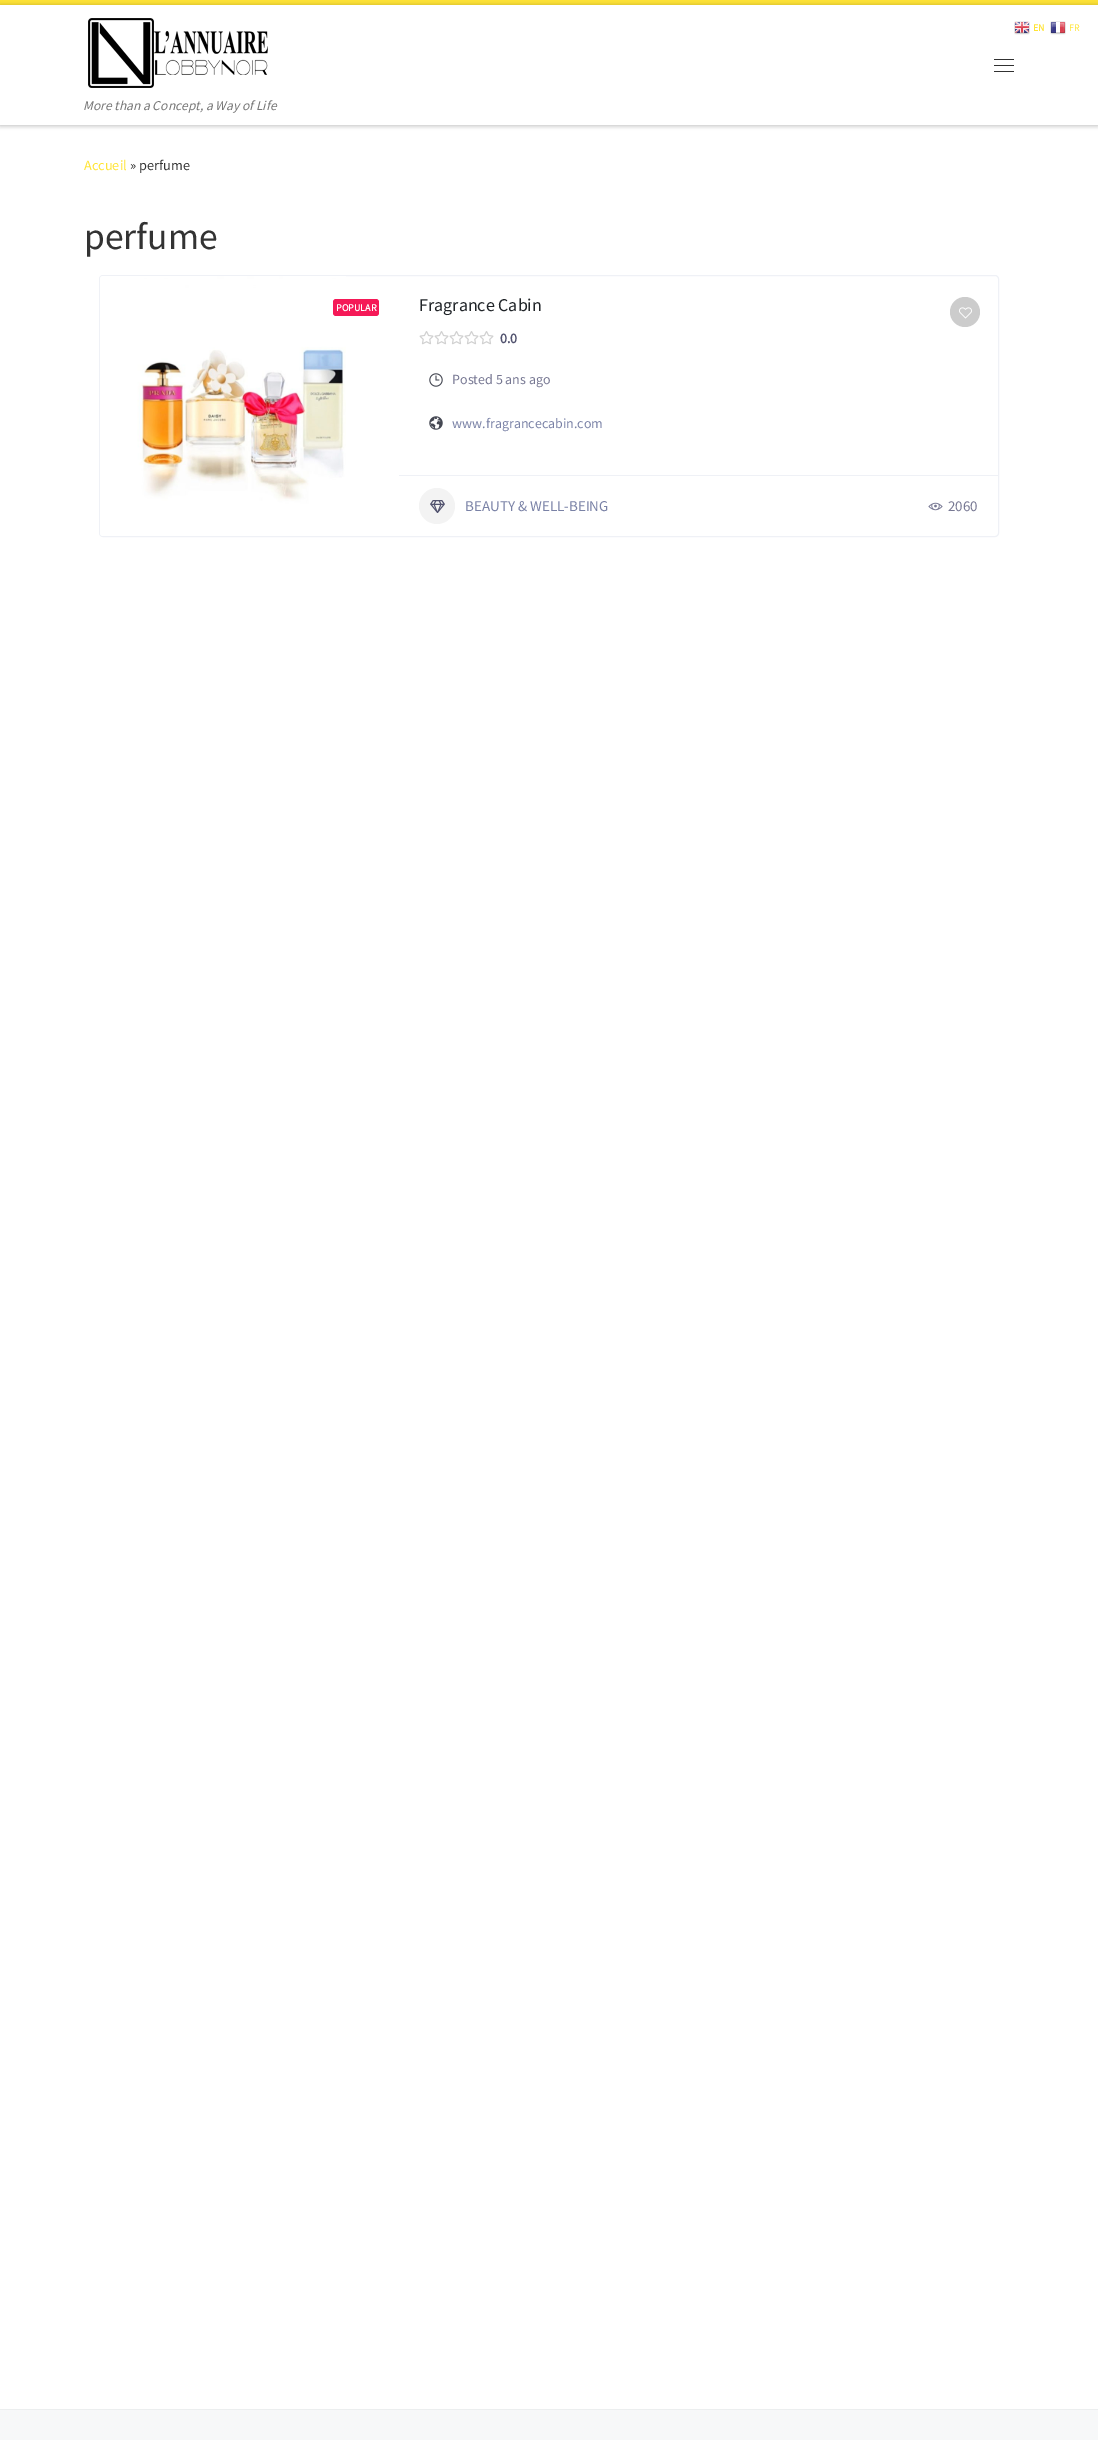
%!PS-Adobe-3.0
%%BoundingBox: 0 0 1098 2440
%%LanguageLevel: 3
%%Pages: 1
%%EndComments
%%BeginProlog
/setalpha { dup .setfillconstantalpha .setstrokeconstantalpha } def
/rrect { 5 dict begin { /r /h /w /y /x } { exch def } forall
  x r add y moveto x w add y 2 copy h add r arct x w add y h add x 1 index r arct
  x y h add x y r arct x y 2 copy exch w add exch r arct closepath end } def
/softshadow { 12 dict begin { /a /b /q /h /w /y /x } { exch def } forall gsave /was 0 def
  9 -2 -9 { dup b mul 4 div /e exch def 1 sub .425 mul 2.718 exch exp 1 add a .99 .min exch div /now exch def
    1 1 now sub 1 was sub div sub setalpha /was now def
    w h .min e 2 mul add 0 gt { x e sub y e sub w e 2 mul add h e 2 mul add
      q e add b .6 mul add w h .min 2 div e add .min 0 .max rrect fill } if } for grestore end } def
/drawimage { 5 dict begin { /h /w /y /x /name } { exch def } forall
  gsave x y translate w h scale
  w h 8 [w 0 0 h 0 0] name (r) file false 3 colorimage grestore end } def
%%EndProlog
%%BeginSetup
<< /PageSize [1098 2440] /PageUsesTransparency true >> setpagedevice
%%EndSetup
%%Page: 1 1
0 .pushpdf14devicefilter
0 2440 translate 1 -1 scale
4 setmiterlimit
1 setgray
0 0 1098 2440 rectfill
gsave
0 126 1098 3 rectclip
0.4 setgray
0 2 1098 126 0 1 0.08 softshadow
grestore
1 0.894 0.212 setrgbcolor
0 0 1098 5 rectfill
0.937 setgray
0 125 1098 1 rectfill
gsave
newpath 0 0 moveto 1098 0 lineto 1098 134 lineto 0 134 lineto closepath 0 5 moveto 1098 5 lineto 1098 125 lineto 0 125 lineto closepath eoclip newpath
0 setgray
0 5 1098 120 0 2.5 0.2 softshadow
grestore
(images/1.raw) 1014 21 16 14 drawimage
(images/2.raw) 1050 21 16 14 drawimage
0.192 setgray
994 59 20 1 0.5 rrect fill
994 65 20 1 0.5 rrect fill
994 71 20 1 0.5 rrect fill
(images/3.raw) 88 18 180 70 drawimage
0.937 0.945 0.965 setrgbcolor
99.5 275.5 899 261 3.5 rrect stroke
(images/4.raw) 100 276 246 260 drawimage
0.961 0.098 0.341 setrgbcolor
333 299 46 17 3 rrect fill
(images/5.raw) 419 331 15 14 drawimage
(images/5.raw) 434 331 15 14 drawimage
(images/5.raw) 449 331 15 14 drawimage
(images/5.raw) 464 331 15 14 drawimage
(images/5.raw) 479 331 15 14 drawimage
0.8 setgray
newpath 965 312 15 0 360 arc closepath fill
(images/6.raw) 959 307 13 12 drawimage
(images/7.raw) 429 373 14 14 drawimage
(images/8.raw) 429 416 14 14 drawimage
0.937 0.945 0.965 setrgbcolor
399 475 599 1 rectfill
0.953 setgray
newpath 437 506 18 0 360 arc closepath fill
(images/9.raw) 430 500 15 13 drawimage
(images/10.raw) 928 502 15 9 drawimage
0.925 0.933 0.937 setrgbcolor
0 2409 1098 1 rectfill
0.969 0.973 0.976 setrgbcolor
0 2410 1098 30 rectfill
/SourceSansPro-Bold [10 0 0 -10 0 0] selectfont
1 0.894 0.212 setrgbcolor
1033 31 moveto (EN) show
/SourceSansPro-Regular [10 0 0 -10 0 0] selectfont
1069 31 moveto (FR) show
/SourceSansPro-Italic [13.5 0 0 -13.5 0 0] selectfont
0.467 setgray
83 110 moveto (More than a Concept, a Way of Life) show
/SourceSansPro-Regular [14.25 0 0 -14.25 0 0] selectfont
1 0.894 0.212 setrgbcolor
84 170 moveto (Accueil) show
0.2 setgray
130 170 moveto (» perfume) show
/SourceSansPro-Regular [37.5 0 0 -37.5 0 0] selectfont
84 249 moveto (perfume) show
/SourceSansPro-Bold [10 0 0 -10 0 0] selectfont
1 setgray
336 311 moveto (POPULAR) show
/SourceSansPro-Regular [18 0 0 -18 0 0] selectfont
0.125 0.141 0.157 setrgbcolor
419 311 moveto (Fragrance Cabin) show
/SourceSansPro-Bold [14 0 0 -14 0 0] selectfont
0.318 0.322 0.431 setrgbcolor
500 343 moveto (0.0) show
/SourceSansPro-Regular [14 0 0 -14 0 0] selectfont
0.463 0.467 0.573 setrgbcolor
452 384 moveto (Posted 5 ans ago) show
0.478 0.51 0.651 setrgbcolor
452 428 moveto (www.fragrancecabin.com) show
/SourceSansPro-Regular [15 0 0 -15 0 0] selectfont
465 511 moveto (BEAUTY & WELL-BEING) show
0.463 0.467 0.573 setrgbcolor
948 511 moveto (2060) show
.poppdf14devicefilter showpage
%%EOF
